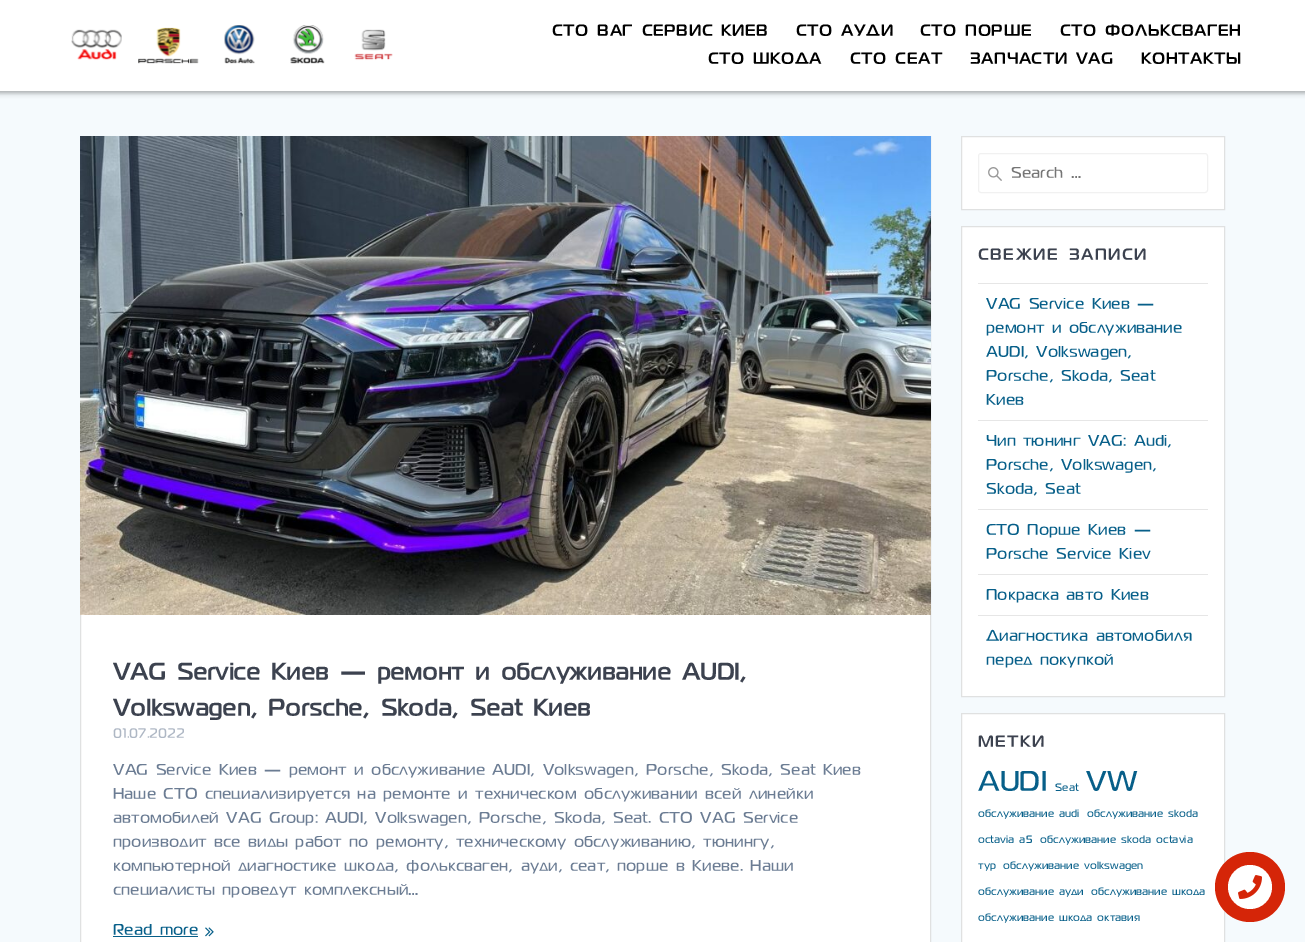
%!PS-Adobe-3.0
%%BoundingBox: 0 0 1305 942
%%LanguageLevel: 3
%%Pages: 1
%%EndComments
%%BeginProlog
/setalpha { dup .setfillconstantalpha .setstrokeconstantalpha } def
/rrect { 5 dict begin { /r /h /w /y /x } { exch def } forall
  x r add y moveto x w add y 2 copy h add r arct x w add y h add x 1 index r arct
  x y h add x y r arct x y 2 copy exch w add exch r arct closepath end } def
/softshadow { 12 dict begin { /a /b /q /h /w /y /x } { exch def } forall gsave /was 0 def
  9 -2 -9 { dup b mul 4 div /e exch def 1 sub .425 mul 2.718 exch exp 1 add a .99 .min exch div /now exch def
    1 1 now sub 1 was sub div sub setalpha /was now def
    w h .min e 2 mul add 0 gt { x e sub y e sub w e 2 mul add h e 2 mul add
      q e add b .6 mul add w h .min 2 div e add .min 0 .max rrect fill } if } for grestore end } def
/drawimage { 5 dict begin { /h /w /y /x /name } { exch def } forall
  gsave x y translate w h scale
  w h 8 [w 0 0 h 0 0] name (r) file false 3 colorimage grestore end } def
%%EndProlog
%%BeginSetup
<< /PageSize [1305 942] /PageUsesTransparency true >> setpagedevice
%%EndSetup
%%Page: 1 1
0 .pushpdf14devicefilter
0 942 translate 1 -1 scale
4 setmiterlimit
0.961 0.98 0.992 setrgbcolor
0 0 1305 942 rectfill
0 setgray
-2 -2 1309 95 0 2.5 0.33 softshadow
1 setgray
0 0 1305 91 rectfill
(images/1.raw) 71 25 322 39 drawimage
81 615 849 327 rectfill
0.878 0.882 0.882 setrgbcolor
80.5 136.5 850 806 rectstroke
(images/2.raw) 80 136 851 479 drawimage
0.027 0.373 0.537 setrgbcolor
113 936 85 1 rectfill
(images/3.raw) 205 927 9 10 drawimage
1 setgray
newpath 961.5 136.5 moveto 1224.5 136.5 lineto 1224.5 209.5 lineto 961.5 209.5 lineto closepath gsave fill grestore
0.878 0.882 0.882 setrgbcolor
stroke
(images/4.raw) 988 167 14 14 drawimage
0.945 setgray
978.5 153.5 229 39 2.5 rrect stroke
1 setgray
newpath 961.5 226.5 moveto 1224.5 226.5 lineto 1224.5 696.5 lineto 961.5 696.5 lineto closepath gsave fill grestore
0.878 0.882 0.882 setrgbcolor
stroke
0.902 setgray
978 283 230 1 rectfill
978 420 230 1 rectfill
978 509 230 1 rectfill
978 574 230 1 rectfill
978 615 230 1 rectfill
1 setgray
newpath 961.5 713.5 moveto 1224.5 713.5 lineto 1224.5 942.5 lineto 961.5 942.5 lineto closepath gsave fill grestore
0.878 0.882 0.882 setrgbcolor
stroke
0.835 0.145 0.031 setrgbcolor
newpath 1250 887 35 0 360 arc closepath fill
1 setgray
newpath 1250 887 22 0 360 arc closepath fill
(images/5.raw) 1238 875 24 24 drawimage
/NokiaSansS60-Bold [16 0 0 -16 0 0] selectfont
0 setgray
552 36 moveto 1 0 (СТО ВАГ СЕРВИС КИЕВ) ashow
796 36 moveto 1 0 (СТО АУДИ) ashow
920 36 moveto 1 0 (СТО ПОРШЕ) ashow
1060 36 moveto 1 0 (СТО ФОЛЬКСВАГЕН) ashow
708 64 moveto 1 0 (СТО ШКОДА) ashow
850 64 moveto 1 0 (СТО СЕАТ) ashow
970 64 moveto 1 0 (ЗАПЧАСТИ VAG) ashow
1141 64 moveto 1 0 (КОНТАКТЫ) ashow
/NokiaSansS60-Bold [24 0 0 -24 0 0] selectfont
0.235 0.259 0.31 setrgbcolor
113 680 moveto (VAG Service Киев — ремонт и обслуживание AUDI,) show
113 716 moveto (Volkswagen, Porsche, Skoda, Seat Киев) show
/NokiaSansS60-Regular [14 0 0 -14 0 0] selectfont
0.682 0.718 0.769 setrgbcolor
113 738 moveto (01.07.2022) show
/NokiaSansS60-Regular [16 0 0 -16 0 0] selectfont
0.42 0.486 0.576 setrgbcolor
113 775 moveto (VAG Service Киев — ремонт и обслуживание AUDI, Volkswagen, Porsche, Skoda, Seat Киев) show
113 799 moveto (Наше СТО специализируется на ремонте и техническом обслуживании всей линейки) show
113 823 moveto (автомобилей VAG Group: AUDI, Volkswagen, Porsche, Skoda, Seat. СТО VAG Service) show
113 847 moveto (производит все виды работ по ремонту, техническому обслуживанию, тюнингу,) show
113 871 moveto (компьютерной диагностике шкода, фольксваген, ауди, сеат, порше в Киеве. Наши) show
113 895 moveto (специалисты проведут комплексный…) show
0.027 0.373 0.537 setrgbcolor
113 935 moveto (Read more) show
0.459 setgray
1011 178 moveto (Search …) show
/NokiaSansS60-Bold [16 0 0 -16 0 0] selectfont
0.235 0.259 0.31 setrgbcolor
978 260 moveto 2 0 (СВЕЖИЕ ЗАПИСИ) ashow
/NokiaSansS60-Regular [16 0 0 -16 0 0] selectfont
0.027 0.373 0.537 setrgbcolor
986 309 moveto (VAG Service Киев —) show
986 333 moveto (ремонт и обслуживание) show
986 357 moveto (AUDI, Volkswagen,) show
986 381 moveto (Porsche, Skoda, Seat) show
986 405 moveto (Киев) show
986 446 moveto (Чип тюнинг VAG: Audi,) show
986 470 moveto (Porsche, Volkswagen,) show
986 494 moveto (Skoda, Seat) show
986 535 moveto (СТО Порше Киев —) show
986 559 moveto (Porsche Service Kiev) show
986 600 moveto (Покраска авто Киев) show
986 641 moveto (Диагностика автомобиля) show
986 665 moveto (перед покупкой) show
/NokiaSansS60-Bold [16 0 0 -16 0 0] selectfont
0.235 0.259 0.31 setrgbcolor
978 747 moveto 2 0 (МЕТКИ) ashow
/NokiaSansS60-Regular [29 0 0 -29 0 0] selectfont
0.027 0.373 0.537 setrgbcolor
978 791 moveto (AUDI) show
/NokiaSansS60-Regular [10.7 0 0 -10.7 0 0] selectfont
1055 791 moveto (Seat) show
/NokiaSansS60-Regular [29 0 0 -29 0 0] selectfont
1086 791 moveto (VW) show
/NokiaSansS60-Regular [10.7 0 0 -10.7 0 0] selectfont
978 817 moveto (обслуживание audi) show
1087 817 moveto (обслуживание skoda) show
978 843 moveto (octavia a5) show
1040 843 moveto (обслуживание skoda octavia) show
978 869 moveto (тур) show
1003 869 moveto (обслуживание volkswagen) show
978 895 moveto (обслуживание ауди) show
1091 895 moveto (обслуживание шкода) show
978 921 moveto (обслуживание шкода октавия) show
.poppdf14devicefilter showpage
%%EOF
